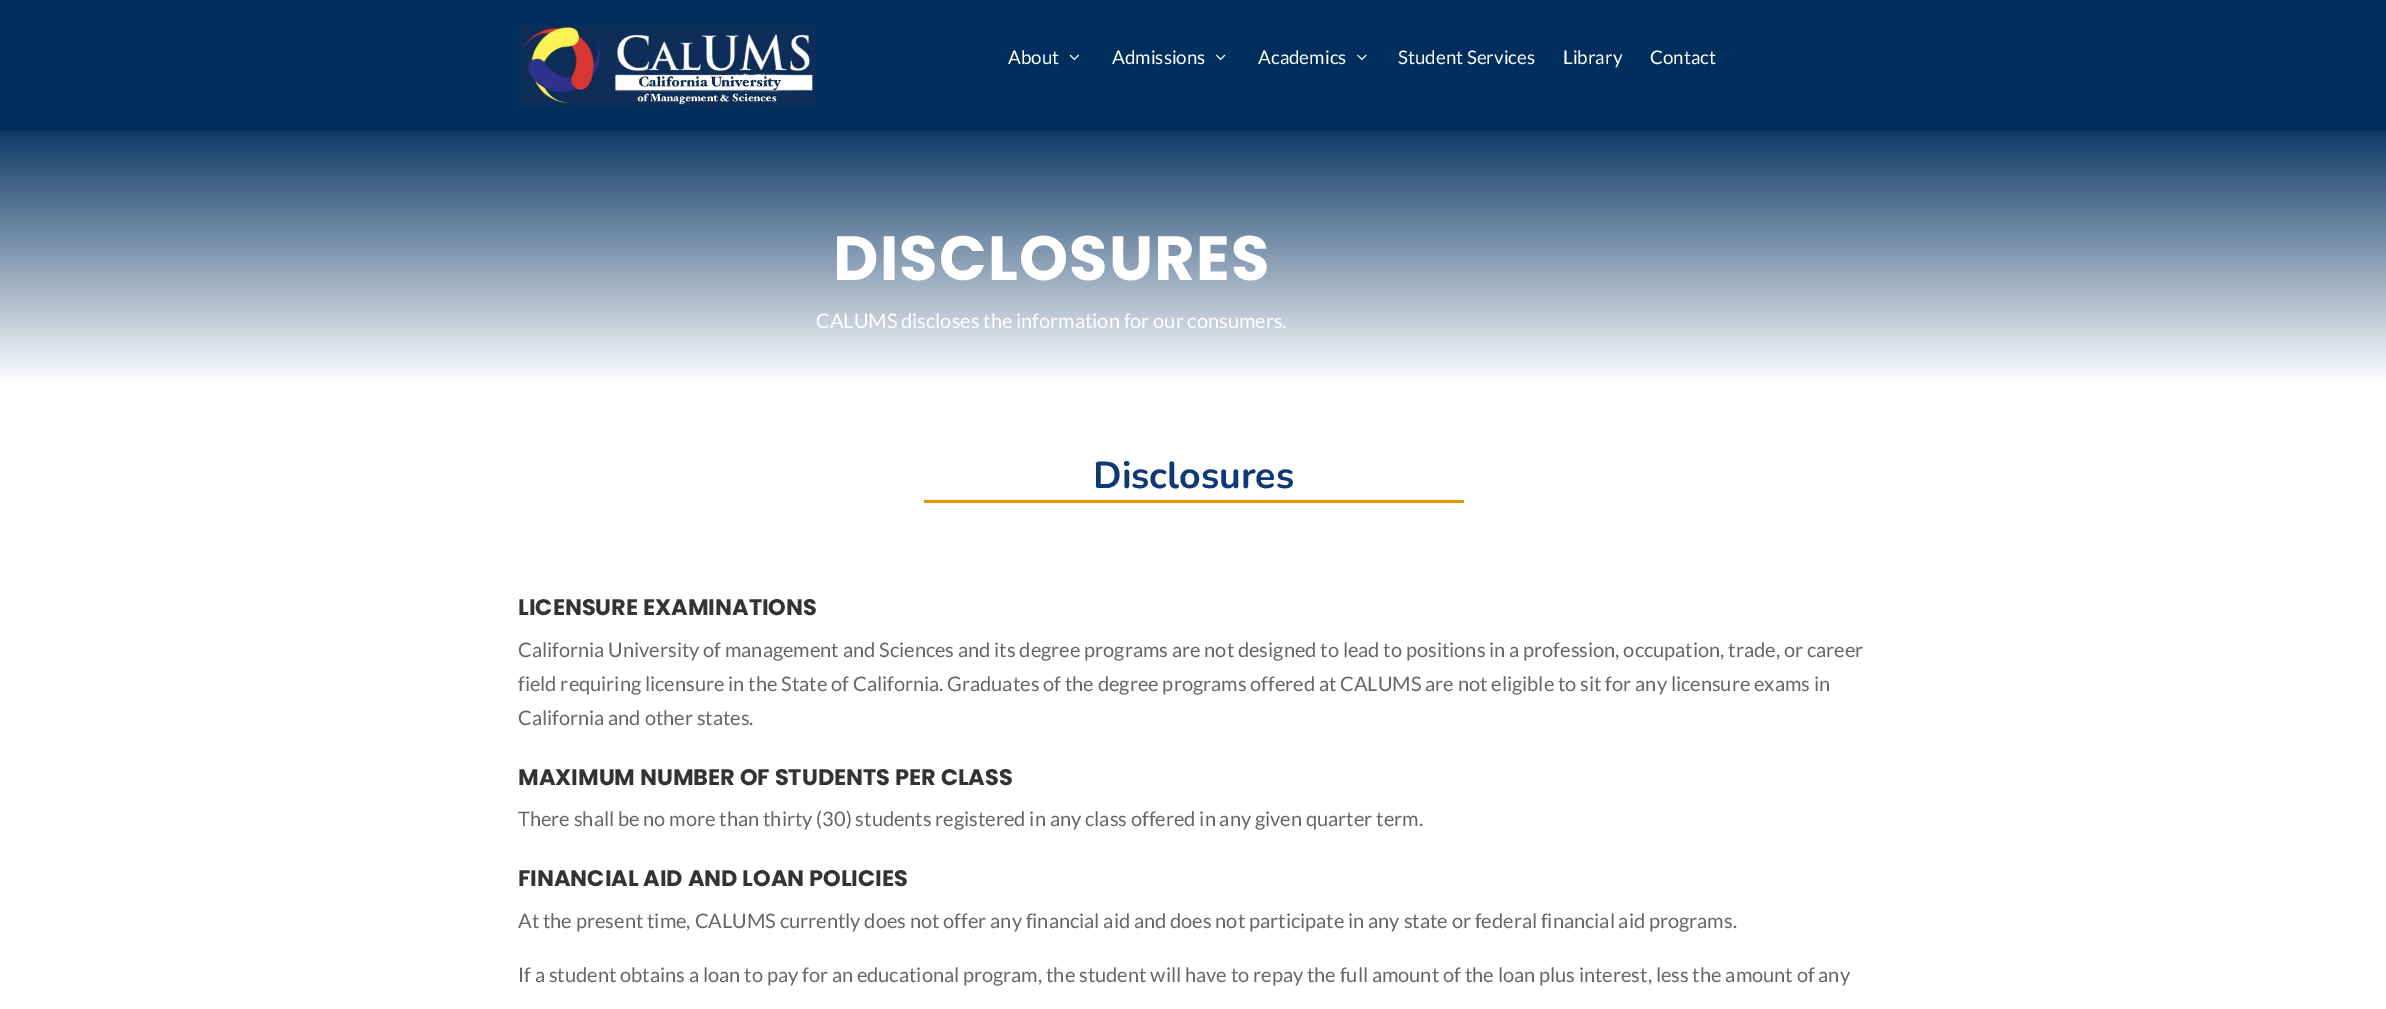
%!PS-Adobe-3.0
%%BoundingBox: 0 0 2386 1009
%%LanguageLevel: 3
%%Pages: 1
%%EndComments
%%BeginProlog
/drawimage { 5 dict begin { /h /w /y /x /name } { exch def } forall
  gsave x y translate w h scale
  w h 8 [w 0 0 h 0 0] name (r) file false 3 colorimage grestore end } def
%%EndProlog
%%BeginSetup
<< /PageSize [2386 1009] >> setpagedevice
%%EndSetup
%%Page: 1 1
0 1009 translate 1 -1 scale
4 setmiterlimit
1 setgray
0 0 2386 1009 rectfill
0 0.18 0.365 setrgbcolor
0 0 2386 131 rectfill
(images/1.raw) 519 25 299 81 drawimage
(images/2.raw) 1069 54 10 6 drawimage
(images/3.raw) 1216 54 10 6 drawimage
(images/4.raw) 1357 54 10 6 drawimage
gsave newpath 0 131 moveto 2386 131 lineto 2386 381 lineto 0 381 lineto closepath clip newpath
<< /ShadingType 2 /ColorSpace /DeviceRGB /Coords [1193 115 1193 386] /Extend [true true] /Function << /FunctionType 3 /Domain [0 1] /Functions [<< /FunctionType 2 /Domain [0 1] /C0 [0 0.18 0.365] /C1 [1 1 1] /N 1 >> << /FunctionType 2 /Domain [0 1] /C0 [1 1 1] /C1 [1 1 1] /N 1 >>] /Bounds [0.99] /Encode [0 1 0 1] >> >> shfill grestore
0.878 0.6 0 setrgbcolor
924 500 540 3 rectfill
/Lato-Regular [18.75 0 0 -18.75 0 0] selectfont
1 setgray
1008 64 moveto (About) show
1112 64 moveto (Admissions) show
1258 64 moveto (Academics) show
1398 64 moveto (Student Services) show
1563 64 moveto (Library) show
1650 64 moveto (Contact) show
/Poppins-Bold [62.5 0 0 -62.5 0 0] selectfont
833 280 moveto 1.25 0 (DISCLOSURES) ashow
/Lato-Regular [20 0 0 -20 0 0] selectfont
816 328 moveto (CALUMS discloses the information for our consumers.) show
/Nunito-Bold [37.5 0 0 -37.5 0 0] selectfont
0.059 0.22 0.459 setrgbcolor
1093 488 moveto (Disclosures) show
/Poppins-Bold [22.5 0 0 -22.5 0 0] selectfont
0.2 setgray
518 615 moveto (LICENSURE EXAMINATIONS) show
/Lato-Regular [20 0 0 -20 0 0] selectfont
0.4 setgray
518 657 moveto (California University of management and Sciences and its degree programs are not designed to lead to positions in a profession, occupation, trade, or career) show
518 691 moveto (field requiring licensure in the State of California. Graduates of the degree programs offered at CALUMS are not eligible to sit for any licensure exams in) show
518 725 moveto (California and other states.) show
/Poppins-Bold [22.5 0 0 -22.5 0 0] selectfont
0.2 setgray
518 785 moveto (MAXIMUM NUMBER OF STUDENTS PER CLASS) show
/Lato-Regular [20 0 0 -20 0 0] selectfont
0.4 setgray
518 826 moveto (There shall be no more than thirty \(30\) students registered in any class offered in any given quarter term.) show
/Poppins-Bold [22.5 0 0 -22.5 0 0] selectfont
0.2 setgray
518 886 moveto (FINANCIAL AID AND LOAN POLICIES) show
/Lato-Regular [20 0 0 -20 0 0] selectfont
0.4 setgray
518 928 moveto (At the present time, CALUMS currently does not offer any financial aid and does not participate in any state or federal financial aid programs.) show
518 982 moveto (If a student obtains a loan to pay for an educational program, the student will have to repay the full amount of the loan plus interest, less the amount of any) show
showpage
%%EOF
